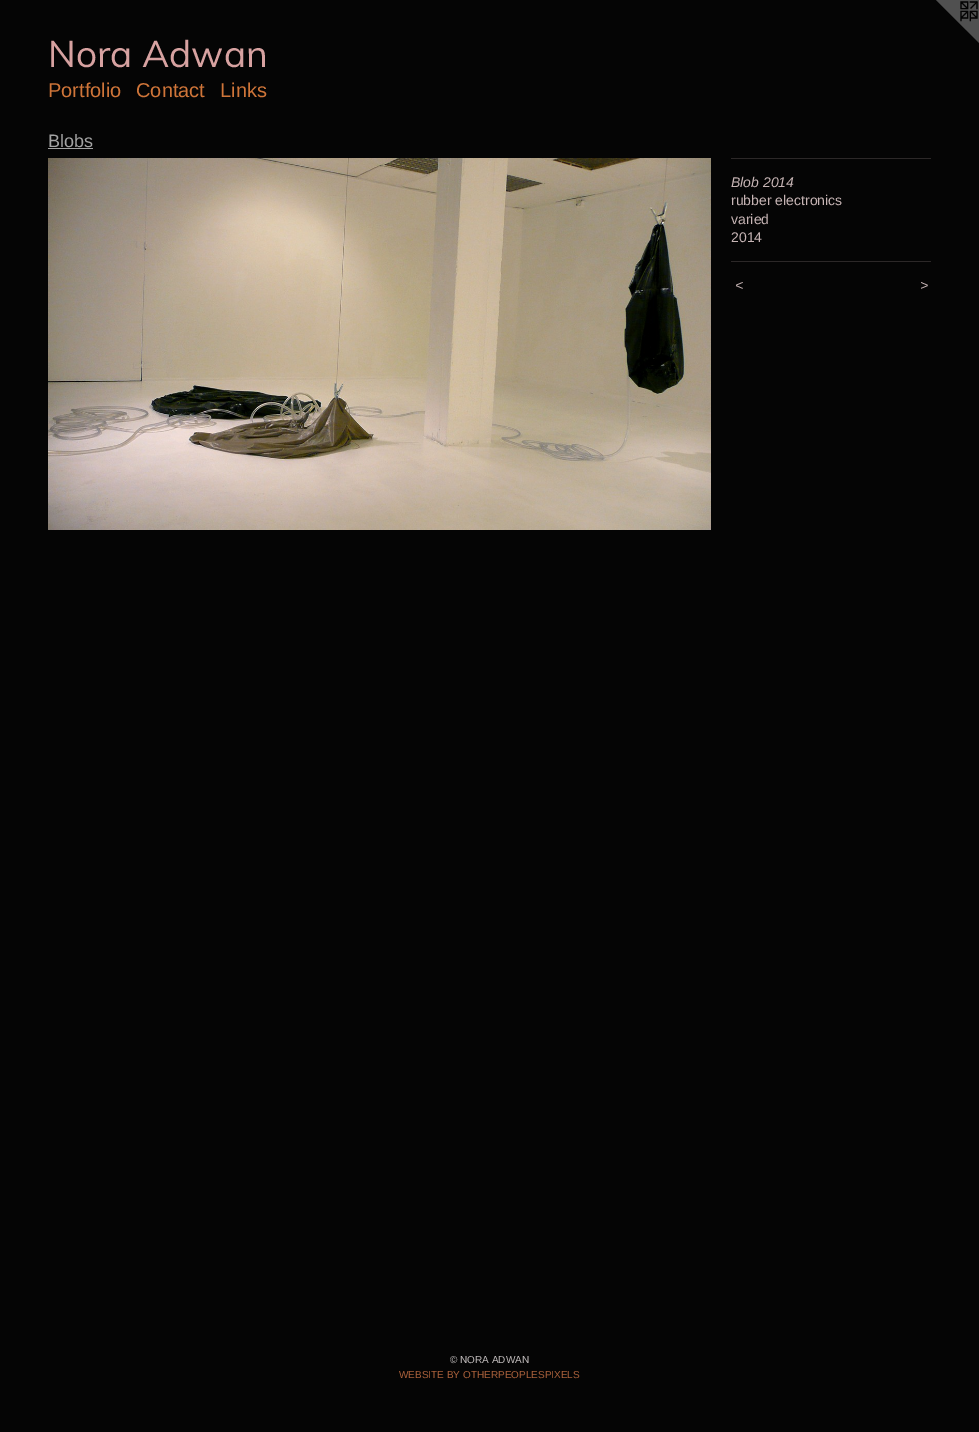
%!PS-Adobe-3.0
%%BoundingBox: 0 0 979 1432
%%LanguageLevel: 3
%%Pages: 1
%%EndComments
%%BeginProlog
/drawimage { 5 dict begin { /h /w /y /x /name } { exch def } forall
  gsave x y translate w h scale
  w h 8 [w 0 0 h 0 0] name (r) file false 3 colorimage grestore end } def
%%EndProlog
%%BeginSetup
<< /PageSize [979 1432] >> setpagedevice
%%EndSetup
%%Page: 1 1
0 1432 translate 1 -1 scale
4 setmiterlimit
0.02 setgray
0 0 979 1432 rectfill
(images/1.raw) 936 0 43 43 drawimage
0.639 setgray
48 148 45 1 rectfill
(images/2.raw) 48 158 663 372 drawimage
0.173 0.157 0.157 setrgbcolor
731 158 200 1 rectfill
731 261 200 1 rectfill
/Muli-Regular [37 0 0 -37 0 0] selectfont
0.843 0.635 0.631 setrgbcolor
48 67 moveto (Nora Adwan) show
/LiberationSans-Regular [20 0 0 -20 0 0] selectfont
0.812 0.459 0.224 setrgbcolor
48 97 moveto (Portfolio) show
136 97 moveto (Contact) show
220 97 moveto (Links) show
/LiberationSans-Regular [18 0 0 -18 0 0] selectfont
0.639 setgray
48 147 moveto (Blobs) show
/LiberationSans-Italic [14 0 0 -14 0 0] selectfont
0.78 0.71 0.71 setrgbcolor
731 187 moveto (Blob 2014) show
/LiberationSans-Regular [14 0 0 -14 0 0] selectfont
731 205 moveto (rubber electronics) show
731 224 moveto (varied) show
731 242 moveto (2014) show
/LiberationSans-Italic [14 0 0 -14 0 0] selectfont
735 290 moveto 1 0 (<) ashow
920 290 moveto 1 0 (>) ashow
/LiberationSans-Regular [10 0 0 -10 0 0] selectfont
0.749 0.729 0.729 setrgbcolor
450 1363 moveto (© NORA ADWAN) show
0.671 0.38 0.231 setrgbcolor
399 1378 moveto (WEBSITE BY OTHERPEOPLESPIXELS) show
showpage
%%EOF
